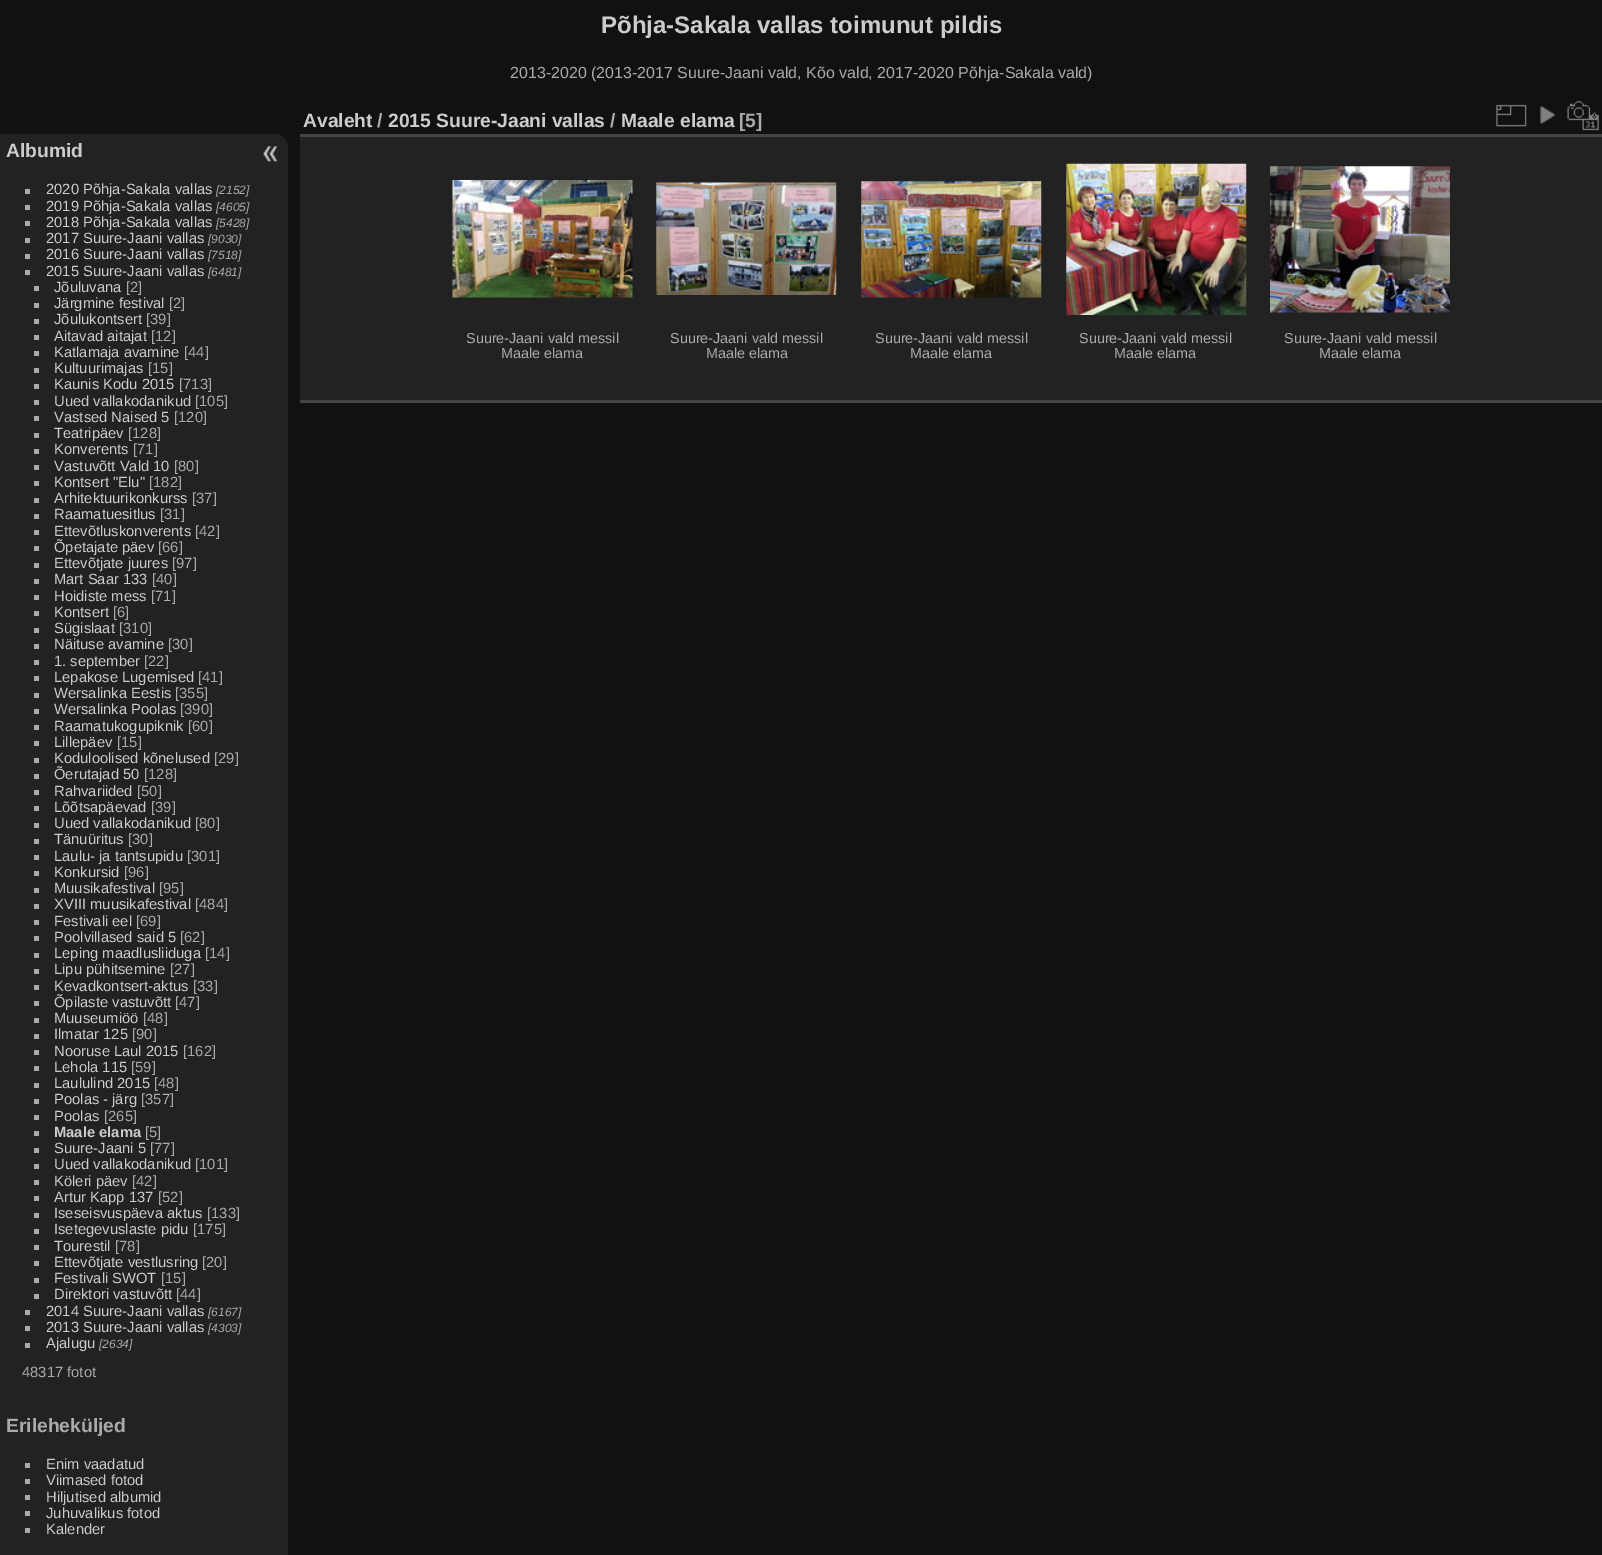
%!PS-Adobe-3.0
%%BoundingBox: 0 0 1602 1555
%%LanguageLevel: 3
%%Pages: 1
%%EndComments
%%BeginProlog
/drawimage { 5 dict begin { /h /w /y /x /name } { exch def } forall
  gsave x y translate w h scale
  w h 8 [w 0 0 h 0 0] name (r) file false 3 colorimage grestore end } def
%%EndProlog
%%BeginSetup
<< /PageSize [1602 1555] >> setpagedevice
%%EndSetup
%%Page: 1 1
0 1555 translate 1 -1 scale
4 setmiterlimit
0.067 setgray
0 0 1602 1555 rectfill
0.133 setgray
newpath 0 134 moveto 275 134 lineto 282 134 288 140 288 147 curveto 288 1555 lineto 288 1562 282 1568 275 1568 curveto 0 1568 lineto closepath fill
0.667 setgray
25 189 5 5 rectfill
25 205 5 5 rectfill
25 221 5 5 rectfill
25 238 5 5 rectfill
25 254 5 5 rectfill
25 270 5 5 rectfill
34 286 5 5 rectfill
34 303 5 5 rectfill
34 319 5 5 rectfill
34 335 5 5 rectfill
34 351 5 5 rectfill
34 368 5 5 rectfill
34 384 5 5 rectfill
34 400 5 5 rectfill
34 416 5 5 rectfill
34 433 5 5 rectfill
34 449 5 5 rectfill
34 465 5 5 rectfill
34 481 5 5 rectfill
34 498 5 5 rectfill
34 514 5 5 rectfill
34 530 5 5 rectfill
34 546 5 5 rectfill
34 563 5 5 rectfill
34 579 5 5 rectfill
34 595 5 5 rectfill
34 611 5 5 rectfill
34 628 5 5 rectfill
34 644 5 5 rectfill
34 660 5 5 rectfill
34 676 5 5 rectfill
34 693 5 5 rectfill
34 709 5 5 rectfill
34 725 5 5 rectfill
34 741 5 5 rectfill
34 758 5 5 rectfill
34 774 5 5 rectfill
34 790 5 5 rectfill
34 806 5 5 rectfill
34 823 5 5 rectfill
34 839 5 5 rectfill
34 855 5 5 rectfill
34 871 5 5 rectfill
34 888 5 5 rectfill
34 904 5 5 rectfill
34 920 5 5 rectfill
34 936 5 5 rectfill
34 953 5 5 rectfill
34 969 5 5 rectfill
34 985 5 5 rectfill
34 1001 5 5 rectfill
34 1018 5 5 rectfill
34 1034 5 5 rectfill
34 1050 5 5 rectfill
34 1066 5 5 rectfill
34 1083 5 5 rectfill
34 1099 5 5 rectfill
34 1115 5 5 rectfill
34 1131 5 5 rectfill
34 1148 5 5 rectfill
34 1164 5 5 rectfill
34 1180 5 5 rectfill
34 1196 5 5 rectfill
34 1213 5 5 rectfill
34 1229 5 5 rectfill
34 1245 5 5 rectfill
34 1261 5 5 rectfill
34 1278 5 5 rectfill
34 1294 5 5 rectfill
25 1310 5 5 rectfill
25 1326 5 5 rectfill
25 1343 5 5 rectfill
25 1463 5 5 rectfill
25 1479 5 5 rectfill
25 1495 5 5 rectfill
25 1511 5 5 rectfill
25 1528 5 5 rectfill
(images/1.raw) 262 146 16 16 drawimage
0.133 setgray
300 137 1302 263 rectfill
0.267 setgray
300 400 1302 3 rectfill
300 134 1302 3 rectfill
(images/2.raw) 1496 104 31 23 drawimage
(images/3.raw) 1540 106 16 18 drawimage
(images/4.raw) 1567 101 32 30 drawimage
(images/5.raw) 452 180 181 118 drawimage
(images/6.raw) 656 182 181 113 drawimage
(images/7.raw) 861 181 181 117 drawimage
(images/8.raw) 1066 163 181 152 drawimage
(images/9.raw) 1270 166 180 147 drawimage
/LiberationSans-Bold [24 0 0 -24 0 0] selectfont
0.8 setgray
601 33 moveto (Põhja-Sakala vallas toimunut pildis) show
/LiberationSans-Regular [16 0 0 -16 0 0] selectfont
0.667 setgray
510 78 moveto (2013-2020 \(2013-2017 Suure-Jaani vald, Kõo vald, 2017-2020 Põhja-Sakala vald\)) show
/LiberationSans-Bold [19.25 0 0 -19.25 0 0] selectfont
0.8 setgray
6 157 moveto (Albumid) show
/LiberationSans-Regular [14.75 0 0 -14.75 0 0] selectfont
46 194 moveto (2020 Põhja-Sakala vallas) show
/LiberationSans-Italic [12 0 0 -12 0 0] selectfont
0.667 setgray
216 194 moveto ([2152]) show
/LiberationSans-Regular [14.75 0 0 -14.75 0 0] selectfont
0.8 setgray
46 211 moveto (2019 Põhja-Sakala vallas) show
/LiberationSans-Italic [12 0 0 -12 0 0] selectfont
0.667 setgray
216 211 moveto ([4605]) show
/LiberationSans-Regular [14.75 0 0 -14.75 0 0] selectfont
0.8 setgray
46 227 moveto (2018 Põhja-Sakala vallas) show
/LiberationSans-Italic [12 0 0 -12 0 0] selectfont
0.667 setgray
216 227 moveto ([5428]) show
/LiberationSans-Regular [14.75 0 0 -14.75 0 0] selectfont
0.8 setgray
46 243 moveto (2017 Suure-Jaani vallas) show
/LiberationSans-Italic [12 0 0 -12 0 0] selectfont
0.667 setgray
208 243 moveto ([9030]) show
/LiberationSans-Regular [14.75 0 0 -14.75 0 0] selectfont
0.8 setgray
46 259 moveto (2016 Suure-Jaani vallas) show
/LiberationSans-Italic [12 0 0 -12 0 0] selectfont
0.667 setgray
208 259 moveto ([7518]) show
/LiberationSans-Regular [14.75 0 0 -14.75 0 0] selectfont
0.8 setgray
46 276 moveto (2015 Suure-Jaani vallas) show
/LiberationSans-Italic [12 0 0 -12 0 0] selectfont
0.667 setgray
208 276 moveto ([6481]) show
/LiberationSans-Regular [14.75 0 0 -14.75 0 0] selectfont
0.8 setgray
54 292 moveto (Jõuluvana) show
0.667 setgray
126 292 moveto ([2]) show
0.8 setgray
54 308 moveto (Järgmine festival) show
0.667 setgray
169 308 moveto ([2]) show
0.8 setgray
54 324 moveto (Jõulukontsert) show
0.667 setgray
146 324 moveto ([39]) show
0.8 setgray
54 341 moveto (Aitavad aitajat) show
0.667 setgray
151 341 moveto ([12]) show
0.8 setgray
54 357 moveto (Katlamaja avamine) show
0.667 setgray
184 357 moveto ([44]) show
0.8 setgray
54 373 moveto (Kultuurimajas) show
0.667 setgray
148 373 moveto ([15]) show
0.8 setgray
54 389 moveto (Kaunis Kodu 2015) show
0.667 setgray
179 389 moveto ([713]) show
0.8 setgray
54 406 moveto (Uued vallakodanikud) show
0.667 setgray
195 406 moveto ([105]) show
0.8 setgray
54 422 moveto (Vastsed Naised 5) show
0.667 setgray
174 422 moveto ([120]) show
0.8 setgray
54 438 moveto (Teatripäev) show
0.667 setgray
128 438 moveto ([128]) show
0.8 setgray
54 454 moveto (Konverents) show
0.667 setgray
133 454 moveto ([71]) show
0.8 setgray
54 471 moveto (Vastuvõtt Vald 10) show
0.667 setgray
174 471 moveto ([80]) show
0.8 setgray
54 487 moveto (Kontsert "Elu") show
0.667 setgray
149 487 moveto ([182]) show
0.8 setgray
54 503 moveto (Arhitektuurikonkurss) show
0.667 setgray
192 503 moveto ([37]) show
0.8 setgray
54 519 moveto (Raamatuesitlus) show
0.667 setgray
160 519 moveto ([31]) show
0.8 setgray
54 536 moveto (Ettevõtluskonverents) show
0.667 setgray
195 536 moveto ([42]) show
0.8 setgray
54 552 moveto (Õpetajate päev) show
0.667 setgray
158 552 moveto ([66]) show
0.8 setgray
54 568 moveto (Ettevõtjate juures) show
0.667 setgray
172 568 moveto ([97]) show
0.8 setgray
54 584 moveto (Mart Saar 133) show
0.667 setgray
152 584 moveto ([40]) show
0.8 setgray
54 601 moveto (Hoidiste mess) show
0.667 setgray
151 601 moveto ([71]) show
0.8 setgray
54 617 moveto (Kontsert) show
0.667 setgray
113 617 moveto ([6]) show
0.8 setgray
54 633 moveto (Sügislaat) show
0.667 setgray
119 633 moveto ([310]) show
0.8 setgray
54 649 moveto (Näituse avamine) show
0.667 setgray
168 649 moveto ([30]) show
0.8 setgray
54 666 moveto (1. september) show
0.667 setgray
144 666 moveto ([22]) show
0.8 setgray
54 682 moveto (Lepakose Lugemised) show
0.667 setgray
198 682 moveto ([41]) show
0.8 setgray
54 698 moveto (Wersalinka Eestis) show
0.667 setgray
175 698 moveto ([355]) show
0.8 setgray
54 714 moveto (Wersalinka Poolas) show
0.667 setgray
180 714 moveto ([390]) show
0.8 setgray
54 731 moveto (Raamatukogupiknik) show
0.667 setgray
188 731 moveto ([60]) show
0.8 setgray
54 747 moveto (Lillepäev) show
0.667 setgray
117 747 moveto ([15]) show
0.8 setgray
54 763 moveto (Koduloolised kõnelused) show
0.667 setgray
214 763 moveto ([29]) show
0.8 setgray
54 779 moveto (Õerutajad 50) show
0.667 setgray
144 779 moveto ([128]) show
0.8 setgray
54 796 moveto (Rahvariided) show
0.667 setgray
137 796 moveto ([50]) show
0.8 setgray
54 812 moveto (Lõõtsapäevad) show
0.667 setgray
151 812 moveto ([39]) show
0.8 setgray
54 828 moveto (Uued vallakodanikud) show
0.667 setgray
195 828 moveto ([80]) show
0.8 setgray
54 844 moveto (Tänuüritus) show
0.667 setgray
128 844 moveto ([30]) show
0.8 setgray
54 861 moveto (Laulu- ja tantsupidu) show
0.667 setgray
187 861 moveto ([301]) show
0.8 setgray
54 877 moveto (Konkursid) show
0.667 setgray
124 877 moveto ([96]) show
0.8 setgray
54 893 moveto (Muusikafestival) show
0.667 setgray
159 893 moveto ([95]) show
0.8 setgray
54 909 moveto (XVIII muusikafestival) show
0.667 setgray
195 909 moveto ([484]) show
0.8 setgray
54 926 moveto (Festivali eel) show
0.667 setgray
136 926 moveto ([69]) show
0.8 setgray
54 942 moveto (Poolvillased said 5) show
0.667 setgray
180 942 moveto ([62]) show
0.8 setgray
54 958 moveto (Leping maadlusliiduga) show
0.667 setgray
205 958 moveto ([14]) show
0.8 setgray
54 974 moveto (Lipu pühitsemine) show
0.667 setgray
170 974 moveto ([27]) show
0.8 setgray
54 991 moveto (Kevadkontsert-aktus) show
0.667 setgray
193 991 moveto ([33]) show
0.8 setgray
54 1007 moveto (Õpilaste vastuvõtt) show
0.667 setgray
175 1007 moveto ([47]) show
0.8 setgray
54 1023 moveto (Muuseumiöö) show
0.667 setgray
143 1023 moveto ([48]) show
0.8 setgray
54 1039 moveto (Ilmatar 125) show
0.667 setgray
132 1039 moveto ([90]) show
0.8 setgray
54 1056 moveto (Nooruse Laul 2015) show
0.667 setgray
183 1056 moveto ([162]) show
0.8 setgray
54 1072 moveto (Lehola 115) show
0.667 setgray
131 1072 moveto ([59]) show
0.8 setgray
54 1088 moveto (Laululind 2015) show
0.667 setgray
154 1088 moveto ([48]) show
0.8 setgray
54 1104 moveto (Poolas - järg) show
0.667 setgray
141 1104 moveto ([357]) show
0.8 setgray
54 1121 moveto (Poolas) show
0.667 setgray
104 1121 moveto ([265]) show
/LiberationSans-Bold [14.75 0 0 -14.75 0 0] selectfont
0.8 setgray
54 1137 moveto (Maale elama) show
/LiberationSans-Regular [14.75 0 0 -14.75 0 0] selectfont
0.667 setgray
145 1137 moveto ([5]) show
0.8 setgray
54 1153 moveto (Suure-Jaani 5) show
0.667 setgray
150 1153 moveto ([77]) show
0.8 setgray
54 1169 moveto (Uued vallakodanikud) show
0.667 setgray
195 1169 moveto ([101]) show
0.8 setgray
54 1186 moveto (Köleri päev) show
0.667 setgray
132 1186 moveto ([42]) show
0.8 setgray
54 1202 moveto (Artur Kapp 137) show
0.667 setgray
158 1202 moveto ([52]) show
0.8 setgray
54 1218 moveto (Iseseisvuspäeva aktus) show
0.667 setgray
207 1218 moveto ([133]) show
0.8 setgray
54 1234 moveto (Isetegevuslaste pidu) show
0.667 setgray
193 1234 moveto ([175]) show
0.8 setgray
54 1251 moveto (Tourestil) show
0.667 setgray
115 1251 moveto ([78]) show
0.8 setgray
54 1267 moveto (Ettevõtjate vestlusring) show
0.667 setgray
202 1267 moveto ([20]) show
0.8 setgray
54 1283 moveto (Festivali SWOT) show
0.667 setgray
161 1283 moveto ([15]) show
0.8 setgray
54 1299 moveto (Direktori vastuvõtt) show
0.667 setgray
176 1299 moveto ([44]) show
0.8 setgray
46 1316 moveto (2014 Suure-Jaani vallas) show
/LiberationSans-Italic [12 0 0 -12 0 0] selectfont
0.667 setgray
208 1316 moveto ([6167]) show
/LiberationSans-Regular [14.75 0 0 -14.75 0 0] selectfont
0.8 setgray
46 1332 moveto (2013 Suure-Jaani vallas) show
/LiberationSans-Italic [12 0 0 -12 0 0] selectfont
0.667 setgray
208 1332 moveto ([4303]) show
/LiberationSans-Regular [14.75 0 0 -14.75 0 0] selectfont
0.8 setgray
46 1348 moveto (Ajalugu) show
/LiberationSans-Italic [12 0 0 -12 0 0] selectfont
0.667 setgray
99 1348 moveto ([2634]) show
/LiberationSans-Regular [14.75 0 0 -14.75 0 0] selectfont
22 1377 moveto (48317 fotot) show
/LiberationSans-Bold [19.25 0 0 -19.25 0 0] selectfont
6 1432 moveto (Erileheküljed) show
/LiberationSans-Regular [14.75 0 0 -14.75 0 0] selectfont
0.8 setgray
46 1469 moveto (Enim vaadatud) show
46 1485 moveto (Viimased fotod) show
46 1502 moveto (Hiljutised albumid) show
46 1518 moveto (Juhuvalikus fotod) show
46 1534 moveto (Kalender) show
/LiberationSans-Bold [19.25 0 0 -19.25 0 0] selectfont
303 127 moveto (Avaleht) show
0.667 setgray
377 127 moveto (/) show
0.8 setgray
388 127 moveto (2015 Suure-Jaani vallas) show
0.667 setgray
610 127 moveto (/) show
0.8 setgray
621 127 moveto (Maale elama) show
0.667 setgray
739 127 moveto ([5]) show
/LiberationSans-Regular [14.4 0 0 -14.4 0 0] selectfont
466 343 moveto (Suure-Jaani vald messil) show
501 358 moveto (Maale elama) show
670 343 moveto (Suure-Jaani vald messil) show
706 358 moveto (Maale elama) show
875 343 moveto (Suure-Jaani vald messil) show
910 358 moveto (Maale elama) show
1079 343 moveto (Suure-Jaani vald messil) show
1114 358 moveto (Maale elama) show
1284 343 moveto (Suure-Jaani vald messil) show
1319 358 moveto (Maale elama) show
showpage
%%EOF
